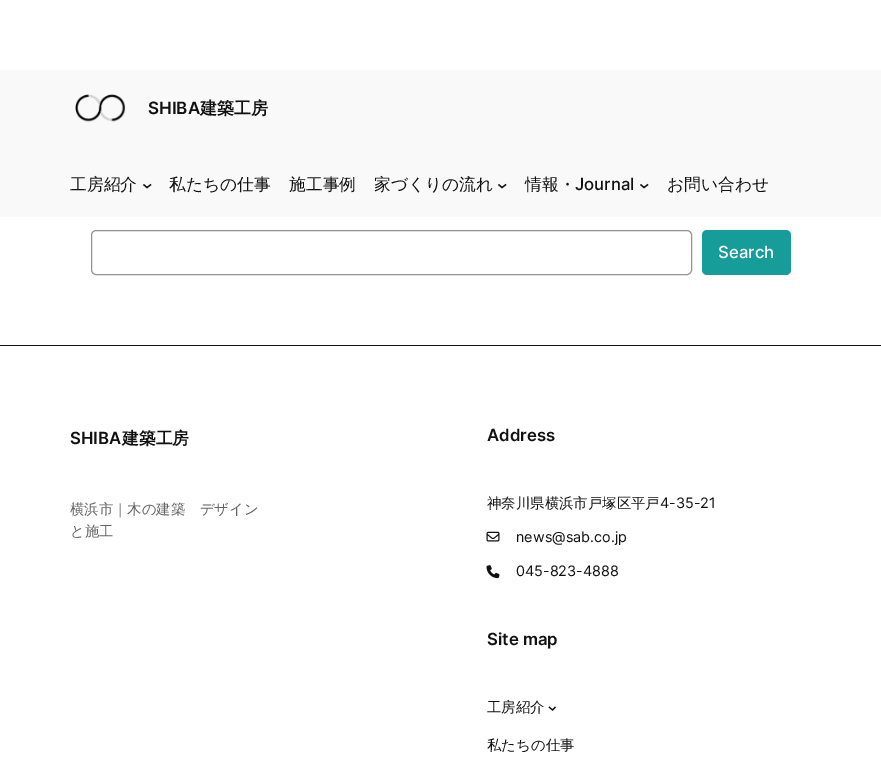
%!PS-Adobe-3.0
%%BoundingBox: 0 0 881 783
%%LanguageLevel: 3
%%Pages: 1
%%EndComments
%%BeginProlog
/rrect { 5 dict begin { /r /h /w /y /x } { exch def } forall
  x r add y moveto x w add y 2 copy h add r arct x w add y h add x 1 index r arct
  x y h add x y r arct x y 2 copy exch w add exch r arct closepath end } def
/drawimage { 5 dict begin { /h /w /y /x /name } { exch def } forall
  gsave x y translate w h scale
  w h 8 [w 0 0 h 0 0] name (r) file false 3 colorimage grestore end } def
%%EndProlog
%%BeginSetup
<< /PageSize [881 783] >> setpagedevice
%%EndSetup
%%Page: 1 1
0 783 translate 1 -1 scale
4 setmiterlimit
1 setgray
0 0 881 783 rectfill
0.976 setgray
0 70 881 147 rectfill
(images/1.raw) 75 94 51 28 drawimage
0.067 setgray
1.3 setlinewidth
newpath 143.5 184.5 moveto 147 187.5 lineto 151 184.5 lineto stroke
newpath 498.5 184.5 moveto 502 187.5 lineto 506 184.5 lineto stroke
newpath 640.5 184.5 moveto 644 187.5 lineto 648 184.5 lineto stroke
0.58 setgray
1 setlinewidth
91.5 230.5 600 44 4.5 rrect stroke
0.086 0.616 0.6 setrgbcolor
702 230 89 45 5 rrect fill
0.067 setgray
0 345 881 1 rectfill
(images/2.raw) 486 531 14 11 drawimage
(images/3.raw) 486 565 14 14 drawimage
1.1 setlinewidth
newpath 549 707 moveto 552.5 710 lineto 555.5 707 lineto stroke
/Inter-SemiBold [17 0 0 -17 0 0] selectfont
148 114 moveto (SHIBA) show
/WenQuanYiZenHei-Bold [17 0 0 -17 0 0] selectfont
200 114 moveto (建築工房) show
/WenQuanYiZenHei-Medium [16.75 0 0 -16.75 0 0] selectfont
70 190 moveto (工房紹介) show
169 190 moveto (私たちの仕事) show
289 190 moveto (施工事例) show
374 190 moveto (家づくりの流れ) show
525 190 moveto (情報・) show
/Inter-Medium [16.75 0 0 -16.75 0 0] selectfont
575 190 moveto (Journal) show
/WenQuanYiZenHei-Medium [16.75 0 0 -16.75 0 0] selectfont
667 190 moveto (お問い合わせ) show
/Inter-Medium [16.75 0 0 -16.75 0 0] selectfont
1 setgray
718 258 moveto (Search) show
/Inter-SemiBold [16.75 0 0 -16.75 0 0] selectfont
0.067 setgray
70 444 moveto (SHIBA) show
/WenQuanYiZenHei-Bold [16.75 0 0 -16.75 0 0] selectfont
122 444 moveto (建築工房) show
/WenQuanYiZenHei-Medium [14.4 0 0 -14.4 0 0] selectfont
0.388 setgray
70 514 moveto (横浜市｜木の建築　デザイン) show
70 536 moveto (と施工) show
/Inter-SemiBold [16.75 0 0 -16.75 0 0] selectfont
0.067 setgray
487 441 moveto (Address) show
/WenQuanYiZenHei-Medium [14.4 0 0 -14.4 0 0] selectfont
487 508 moveto (神奈川県横浜市戸塚区平戸) show
/Inter-Regular [14.4 0 0 -14.4 0 0] selectfont
660 508 moveto (4-35-21) show
516 542 moveto (news@sab.co.jp) show
516 576 moveto (045-823-4888) show
/Inter-SemiBold [16.75 0 0 -16.75 0 0] selectfont
487 645 moveto (Site map) show
/WenQuanYiZenHei-Medium [14.4 0 0 -14.4 0 0] selectfont
487 712 moveto (工房紹介) show
487 750 moveto (私たちの仕事) show
showpage
%%EOF
